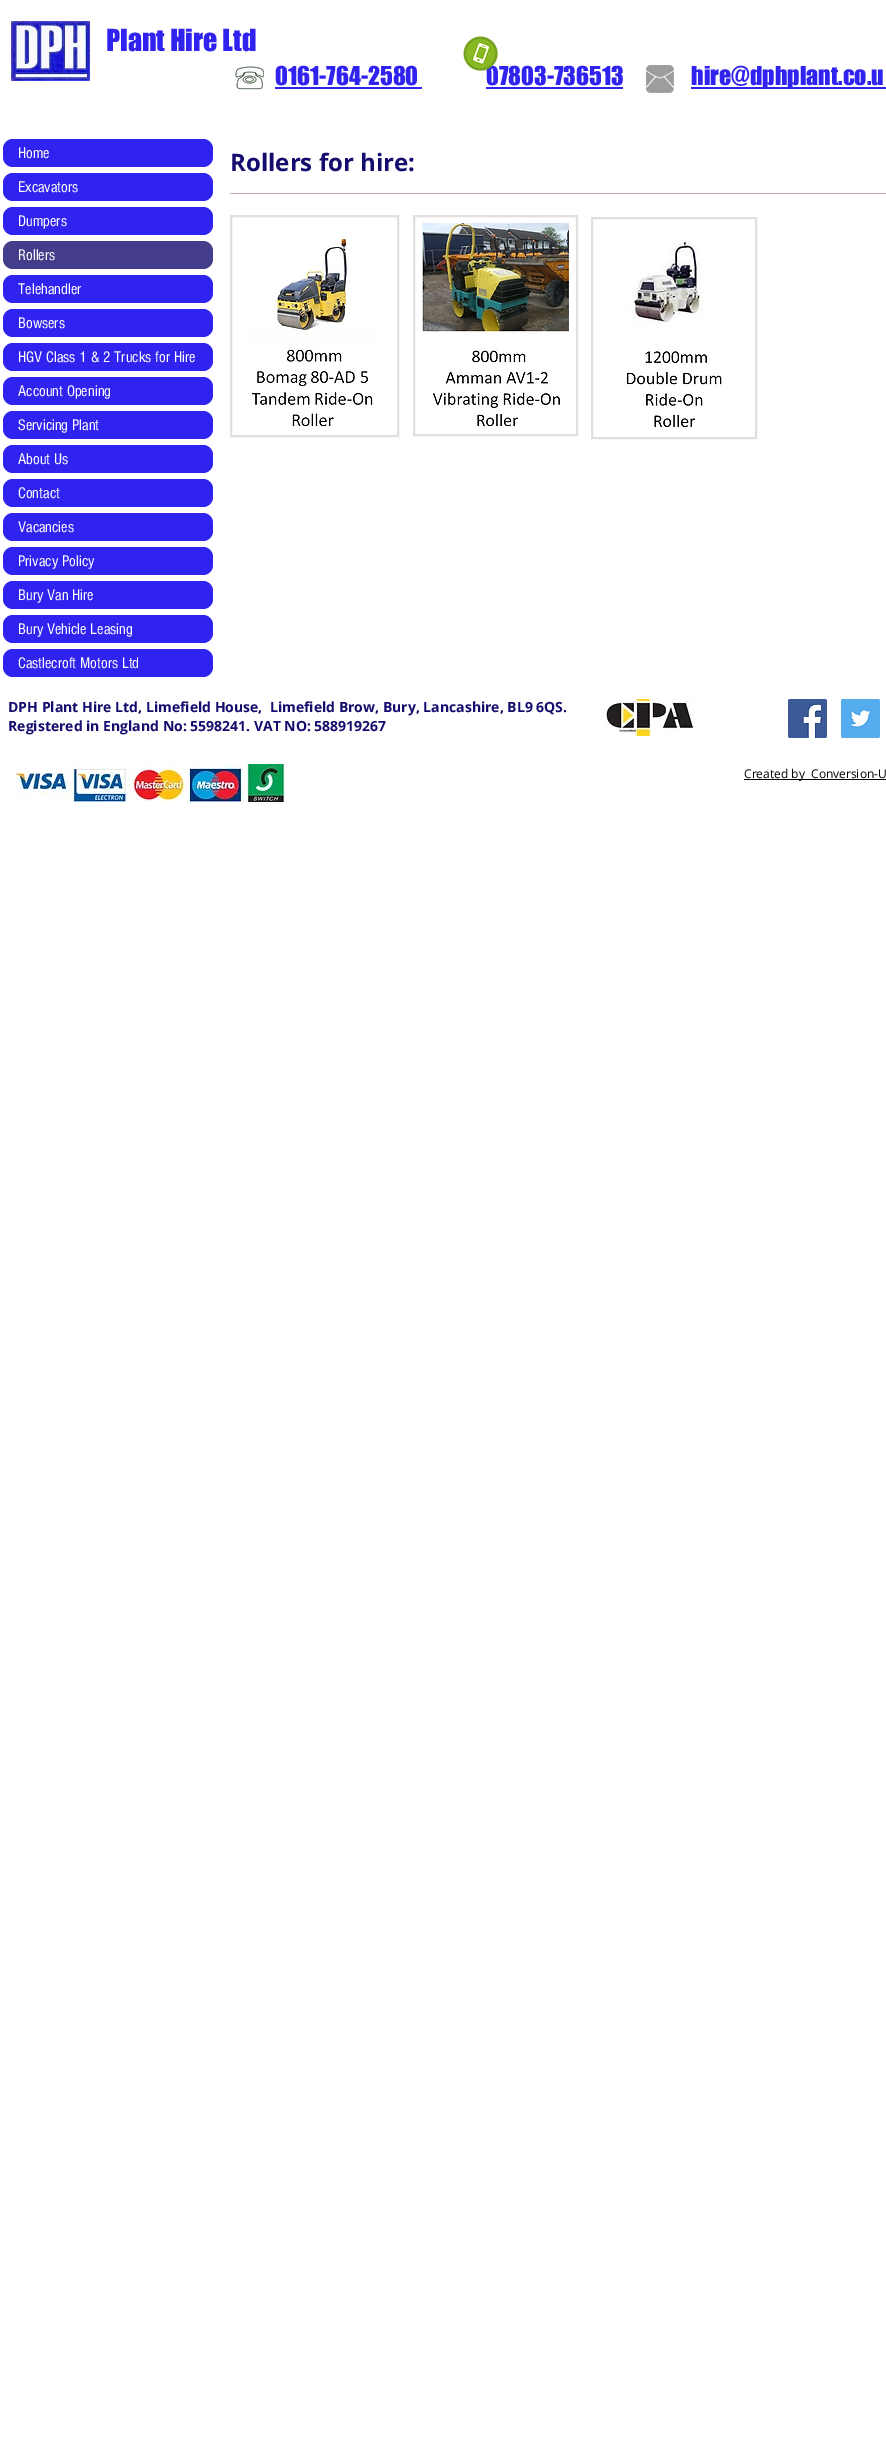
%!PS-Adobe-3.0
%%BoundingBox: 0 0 886 2443
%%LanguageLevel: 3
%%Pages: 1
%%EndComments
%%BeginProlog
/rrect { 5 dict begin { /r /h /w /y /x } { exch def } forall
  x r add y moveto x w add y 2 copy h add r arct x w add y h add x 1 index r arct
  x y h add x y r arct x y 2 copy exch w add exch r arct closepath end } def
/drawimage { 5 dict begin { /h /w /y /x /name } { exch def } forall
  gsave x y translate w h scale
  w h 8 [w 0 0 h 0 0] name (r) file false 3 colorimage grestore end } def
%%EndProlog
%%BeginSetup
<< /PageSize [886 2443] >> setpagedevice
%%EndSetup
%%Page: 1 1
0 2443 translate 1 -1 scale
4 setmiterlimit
1 setgray
0 0 886 2443 rectfill
(images/1.raw) 11 21 79 60 drawimage
0.192 0.137 0.937 setrgbcolor
275 87 147 2 rectfill
486 87 137 2 rectfill
691 87 195 2 rectfill
(images/2.raw) 233 65 32 25 drawimage
(images/3.raw) 646 65 28 28 drawimage
3 139 210 28 10 rrect fill
3 173 210 28 10 rrect fill
3 207 210 28 10 rrect fill
0.263 0.239 0.545 setrgbcolor
3 241 210 28 10 rrect fill
0.192 0.137 0.937 setrgbcolor
3 275 210 28 10 rrect fill
3 309 210 28 10 rrect fill
3 343 210 28 10 rrect fill
3 377 210 28 10 rrect fill
3 411 210 28 10 rrect fill
3 445 210 28 10 rrect fill
3 479 210 28 10 rrect fill
3 513 210 28 10 rrect fill
3 547 210 28 10 rrect fill
3 581 210 28 10 rrect fill
3 615 210 28 10 rrect fill
3 649 210 28 10 rrect fill
0.757 0.694 0.667 setrgbcolor
230 193 656 1 rectfill
0.878 setgray
2 setlinewidth
231 216 167 220 rectstroke
(images/5.raw) 251 238 122 189 drawimage
414 216 163 219 rectstroke
(images/6.raw) 422 223 147 204 drawimage
592 218 164 220 rectstroke
(images/7.raw) 626 242 96 185 drawimage
(images/8.raw) 604 699 92 37 drawimage
(images/9.raw) 788 699 39 39 drawimage
(images/10.raw) 841 699 39 39 drawimage
(images/11.raw) 14 764 271 38 drawimage
0 setgray
744 779 142 1 rectfill
/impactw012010-Regular [28 0 0 -28 0 0] selectfont
0.192 0.137 0.937 setrgbcolor
106 51 moveto (Plant Hire Ltd) show
/impactw012010-Regular [24 0 0 -24 0 0] selectfont
275 85 moveto (0161-764-2580) show
486 85 moveto (07803-736513) show
691 85 moveto (hire@dphplant.co.u) show
(images/4.raw) 463 36 35 35 drawimage
/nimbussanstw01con-Regular [16 0 0 -16 0 0] selectfont
1 setgray
18 158 moveto (Home) show
18 192 moveto (Excavators) show
18 226 moveto (Dumpers) show
18 260 moveto (Rollers) show
18 294 moveto (Telehandler) show
18 328 moveto (Bowsers) show
18 362 moveto (HGV Class 1 & 2 Trucks for Hire) show
18 396 moveto (Account Opening) show
18 430 moveto (Servicing Plant) show
18 464 moveto (About Us) show
18 498 moveto (Contact) show
18 532 moveto (Vacancies) show
18 566 moveto (Privacy Policy) show
18 600 moveto (Bury Van Hire) show
18 634 moveto (Bury Vehicle Leasing) show
18 668 moveto (Castlecroft Motors Ltd) show
/OpenSans-Bold [24 0 0 -24 0 0] selectfont
0.078 0.051 0.431 setrgbcolor
230 171 moveto (Rollers for hire:) show
/OpenSans-Bold [14 0 0 -14 0 0] selectfont
8 712 moveto (DPH Plant Hire Ltd, Limefield House,  Limefield Brow, Bury, Lancashire, BL9 6QS.) show
8 731 moveto (Registered in England No: 5598241. VAT NO: 588919267) show
/OpenSans-Regular [12 0 0 -12 0 0] selectfont
0 setgray
744 778 moveto (Created by  Conversion-U) show
showpage
%%EOF
